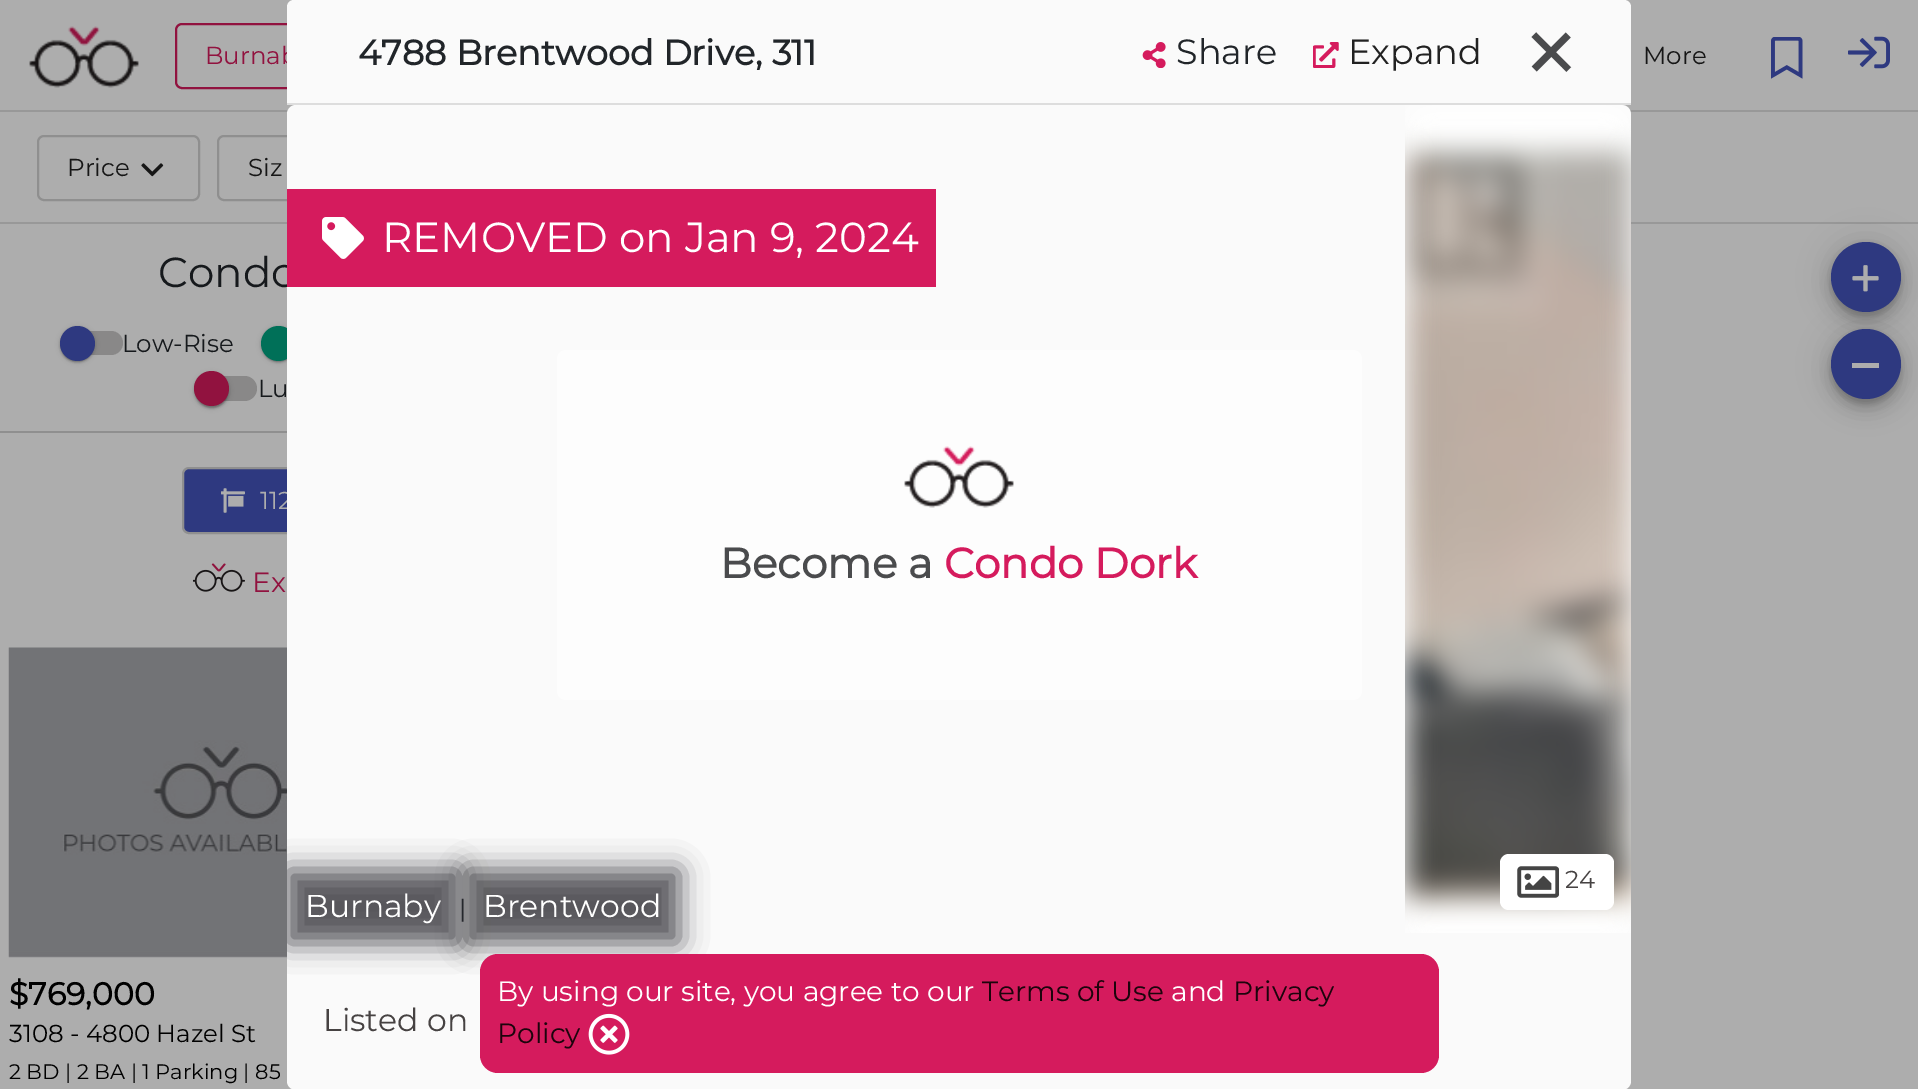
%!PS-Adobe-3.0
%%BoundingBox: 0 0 1918 1089
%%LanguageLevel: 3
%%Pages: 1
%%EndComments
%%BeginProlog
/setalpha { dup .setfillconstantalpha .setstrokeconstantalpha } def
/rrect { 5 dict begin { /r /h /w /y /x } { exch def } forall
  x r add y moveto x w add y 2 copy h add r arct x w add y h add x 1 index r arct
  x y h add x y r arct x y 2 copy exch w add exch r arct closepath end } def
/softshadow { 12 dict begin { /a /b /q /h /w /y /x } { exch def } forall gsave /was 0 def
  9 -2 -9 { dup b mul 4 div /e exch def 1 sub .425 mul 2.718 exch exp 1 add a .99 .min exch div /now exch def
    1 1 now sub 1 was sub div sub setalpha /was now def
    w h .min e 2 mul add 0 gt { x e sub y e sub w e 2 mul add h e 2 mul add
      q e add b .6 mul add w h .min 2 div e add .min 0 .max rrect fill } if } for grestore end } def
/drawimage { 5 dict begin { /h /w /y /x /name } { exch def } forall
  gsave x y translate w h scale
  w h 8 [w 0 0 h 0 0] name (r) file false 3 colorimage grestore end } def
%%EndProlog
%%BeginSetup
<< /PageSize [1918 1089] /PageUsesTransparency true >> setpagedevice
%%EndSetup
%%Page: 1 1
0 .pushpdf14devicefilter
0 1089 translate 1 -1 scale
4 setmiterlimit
0.678 setgray
0 0 1918 1089 rectfill
0.596 setgray
0 222 1918 2 rectfill
0.561 setgray
2 setlinewidth
38 136 161 64 6 rrect stroke
(images/1.raw) 141 163 23 14 drawimage
218 136 149 64 6 rrect stroke
0 431 287 2 rectfill
0.537 0.533 0.533 setrgbcolor
60 331 63 24 12 rrect fill
0 setgray
60 327 35 35 17.5 2.5 0.12 softshadow
60 327 35 35 17.5 1 0.14 softshadow
61 331 32 31 15.5 1 0.2 softshadow
0.18 0.224 0.502 setrgbcolor
newpath 77.5 343.5 17.5 0 360 arc closepath fill
0 setgray
261 327 35 35 17.5 2.5 0.12 softshadow
261 327 35 35 17.5 1 0.14 softshadow
263 331 31 31 15.5 1 0.2 softshadow
0 0.439 0.345 setrgbcolor
newpath 278.5 343.5 17.5 0 360 arc closepath fill
0.537 0.533 0.533 setrgbcolor
194 376 63 25 12.5 rrect fill
0 setgray
194 373 35 35 17.5 2.5 0.12 softshadow
194 373 35 35 17.5 1 0.14 softshadow
196 376 32 32 16 1 0.2 softshadow
0.569 0.071 0.247 setrgbcolor
newpath 211.5 388.5 17.5 0 360 arc closepath fill
0.18 0.224 0.502 setrgbcolor
183 468 255 65 6 rrect gsave fill grestore
0.561 setgray
stroke
(images/2.raw) 221 488 24 25 drawimage
(images/3.raw) 193 563 52 29 drawimage
(images/4.raw) 8 647 279 311 drawimage
0 setgray
1831 243 70 70 35 16 0.12 softshadow
1831 252 70 70 35 9 0.14 softshadow
1832 249 67 66 33 4.5 0.2 softshadow
0.18 0.224 0.502 setrgbcolor
newpath 1866 277 35 0 360 arc closepath fill
(images/5.raw) 1852 265 27 27 drawimage
0 setgray
1831 331 70 70 35 16 0.12 softshadow
1831 340 70 70 35 9 0.14 softshadow
1832 336 67 67 33.5 4.5 0.2 softshadow
0.18 0.224 0.502 setrgbcolor
newpath 1866 364 35 0 360 arc closepath fill
0.678 setgray
1852 363 27 5 rectfill
0.596 setgray
0 110 1918 2 rectfill
(images/12.raw) 29 26 110 62 drawimage
0.569 0.071 0.247 setrgbcolor
176 24 212 64 6 rrect stroke
(images/13.raw) 1771 37 32 42 drawimage
(images/14.raw) 1848 36 42 33 drawimage
/Montserrat-Thin [24.5 0 0 -24.5 0 0] selectfont
0.086 setgray
67 176 moveto (Price) show
248 176 moveto (Siz) show
/Montserrat-Thin [42 0 0 -42 0 0] selectfont
0.086 0.098 0.11 setrgbcolor
158 287 moveto (Condo) show
/Montserrat-Thin [24.5 0 0 -24.5 0 0] selectfont
122 352 moveto (Low-Rise) show
258 397 moveto (Lu) show
0.678 setgray
260 509 moveto (112) show
/Montserrat-Thin [28 0 0 -28 0 0] selectfont
0.569 0.071 0.247 setrgbcolor
252 592 moveto (Ex) show
/Montserrat-Bold [31.5 0 0 -31.5 0 0] selectfont
0 setgray
9 1005 moveto ($769,000) show
/Montserrat-Thin [24.5 0 0 -24.5 0 0] selectfont
9 1042 moveto (3108 - 4800 Hazel St) show
/Montserrat-Thin [21 0 0 -21 0 0] selectfont
9 1079 moveto (2 BD | 2 BA | 1 Parking | 85) show
0.98 setgray
287 105 1344 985 9 rrect fill
0.835 0.106 0.365 setrgbcolor
287 189 649 98 rectfill
(images/8.raw) 322 217 42 42 drawimage
/Montserrat-Thin [42 0 0 -42 0 0] selectfont
1 setgray
382 252 moveto (REMOVED on Jan 9, 2024) show
(images/9.raw) 1405 105 226 828 drawimage
0.992 setgray
557 350 805 350 9 rrect fill
(images/10.raw) 904 446 110 62 drawimage
/Montserrat-Bold [42 0 0 -42 0 0] selectfont
0.29 0.294 0.302 setrgbcolor
720 578 moveto (Become a) show
0.835 0.106 0.365 setrgbcolor
944 578 moveto (Condo Dork) show
1 setgray
1500 854 114 56 9 rrect fill
(images/11.raw) 1517 866 42 32 drawimage
/Montserrat-Thin [24.5 0 0 -24.5 0 0] selectfont
0.275 0.259 0.259 setrgbcolor
1565 888 moveto (24) show
gsave
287 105 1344 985 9 rrect clip newpath
0.176 0.173 0.192 setrgbcolor
287 870 172 73 0 14 0.8 softshadow
grestore
/Montserrat-Thin [31.5 0 0 -31.5 0 0] selectfont
1 setgray
305 917 moveto (Burnaby) show
/Montserrat-Thin [24.5 0 0 -24.5 0 0] selectfont
0.129 0.145 0.161 setrgbcolor
459 917 moveto (|) show
0.176 0.173 0.192 setrgbcolor
466 870 213 73 0 14 0.8 softshadow
/Montserrat-Thin [31.5 0 0 -31.5 0 0] selectfont
1 setgray
483 917 moveto (Brentwood) show
0.275 0.259 0.259 setrgbcolor
323 1031 moveto (Listed on) show
/Montserrat-Thin [24.5 0 0 -24.5 0 0] selectfont
0.569 0.071 0.247 setrgbcolor
205 64 moveto (Burnab) show
0.98 setgray
newpath 294 0 moveto 1624 0 lineto 1628 0 1631 3 1631 7 curveto 1631 105 lineto 287 105 lineto 287 7 lineto 287 3 290 0 294 0 curveto closepath fill
/Montserrat-Thin [114 0 0 -114 0 0] selectfont
0.29 0.294 0.302 setrgbcolor
gsave 1500 57 translate 45 rotate 0 0 moveto (+) show grestore
(images/7.raw) 1313 42 26 26 drawimage
(images/6.raw) 1142 42 24 26 drawimage
/Montserrat-Thin [35 0 0 -35 0 0] selectfont
0.129 setgray
1348 64 moveto (Expand) show
0.129 0.145 0.161 setrgbcolor
1176 64 moveto (Share) show
/Montserrat-Bold [35 0 0 -35 0 0] selectfont
358 65 moveto (4788 Brentwood Drive, 311) show
0.867 setgray
287 103 1344 2 rectfill
/Montserrat-Thin [24.5 0 0 -24.5 0 0] selectfont
0.086 setgray
1643 64 moveto (More) show
0.835 0.106 0.365 setrgbcolor
480 954 959 119 18 rrect fill
/Montserrat-Thin [28 0 0 -28 0 0] selectfont
1 setgray
497 1001 moveto (By using our site, you agree to our) show
0.11 0.016 0.047 setrgbcolor
982 1001 moveto (Terms of Use) show
1 setgray
1171 1001 moveto (and) show
0.11 0.016 0.047 setrgbcolor
1233 1001 moveto (Privacy) show
497 1043 moveto (Policy) show
(images/15.raw) 588 1013 42 42 drawimage
.poppdf14devicefilter showpage
%%EOF
